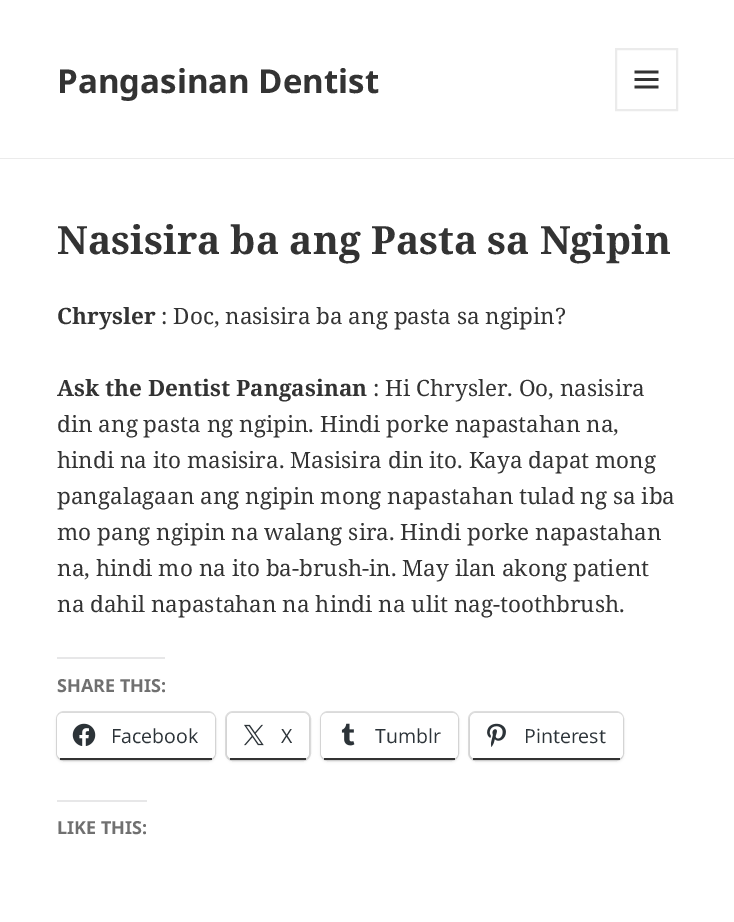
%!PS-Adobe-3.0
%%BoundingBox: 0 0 734 922
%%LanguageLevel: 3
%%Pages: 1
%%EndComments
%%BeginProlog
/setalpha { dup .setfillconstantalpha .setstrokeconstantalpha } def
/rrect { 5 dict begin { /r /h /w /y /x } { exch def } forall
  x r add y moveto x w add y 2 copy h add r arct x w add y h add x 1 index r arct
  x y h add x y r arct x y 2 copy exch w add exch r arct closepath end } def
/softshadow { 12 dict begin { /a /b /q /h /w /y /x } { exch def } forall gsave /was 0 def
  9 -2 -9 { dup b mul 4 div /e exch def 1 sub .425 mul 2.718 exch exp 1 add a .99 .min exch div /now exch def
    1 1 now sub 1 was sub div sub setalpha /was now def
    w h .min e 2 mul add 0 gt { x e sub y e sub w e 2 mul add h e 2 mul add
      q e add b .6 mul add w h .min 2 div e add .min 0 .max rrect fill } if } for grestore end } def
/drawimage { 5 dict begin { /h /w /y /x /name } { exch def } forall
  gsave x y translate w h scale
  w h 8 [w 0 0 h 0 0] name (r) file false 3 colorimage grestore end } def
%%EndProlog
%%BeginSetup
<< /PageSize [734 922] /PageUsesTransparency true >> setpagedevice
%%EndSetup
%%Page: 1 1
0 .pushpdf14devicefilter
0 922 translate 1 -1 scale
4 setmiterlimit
1 setgray
0 0 734 922 rectfill
0.922 setgray
0 158 734 1 rectfill
2 setlinewidth
616 49 61 61 rectstroke
(images/1.raw) 634 70 25 19 drawimage
0.906 0.906 0.91 setrgbcolor
57 657 108 2 rectfill
0.878 setgray
57 712 158 48 7 rrect stroke
0 setgray
57 714 158 47 6 1.5 0.12 softshadow
1 setgray
57 713 158 46 6 rrect fill
0.2 setgray
60 758 152 2 rectfill
(images/2.raw) 72 723 24 23 drawimage
0.878 setgray
226 712 84 48 7 rrect stroke
0 setgray
227 714 82 47 6 1.5 0.12 softshadow
1 setgray
227 713 82 46 6 rrect fill
0.2 setgray
230 758 76 2 rectfill
(images/3.raw) 244 724 20 22 drawimage
0.878 setgray
321 712 137 48 7 rrect stroke
0 setgray
321 714 137 47 6 1.5 0.12 softshadow
1 setgray
321 713 137 46 6 rrect fill
0.2 setgray
324 758 131 2 rectfill
(images/4.raw) 341 723 14 23 drawimage
0.878 setgray
469 712 154 48 7 rrect stroke
0 setgray
470 714 153 47 6 1.5 0.12 softshadow
1 setgray
470 713 153 46 6 rrect fill
0.2 setgray
473 758 147 2 rectfill
(images/5.raw) 487 723 19 24 drawimage
0.906 0.906 0.91 setrgbcolor
57 800 90 2 rectfill
/NotoSans-Bold [33 0 0 -33 0 0] selectfont
0.2 setgray
57 93 moveto (Pangasinan Dentist) show
/NotoSerif-Bold [39 0 0 -39 0 0] selectfont
57 254 moveto (Nasisira ba ang Pasta sa Ngipin) show
/NotoSerif-Bold [22.5 0 0 -22.5 0 0] selectfont
57 324 moveto (Chrysler) show
/NotoSerif-Regular [22.5 0 0 -22.5 0 0] selectfont
161 324 moveto (: Doc, nasisira ba ang pasta sa ngipin?) show
/NotoSerif-Bold [22.5 0 0 -22.5 0 0] selectfont
57 396 moveto (Ask the Dentist Pangasinan) show
/NotoSerif-Regular [22.5 0 0 -22.5 0 0] selectfont
373 396 moveto (: Hi Chrysler. Oo, nasisira) show
57 432 moveto (din ang pasta ng ngipin. Hindi porke napastahan na,) show
57 468 moveto (hindi na ito masisira. Masisira din ito. Kaya dapat mong) show
57 504 moveto (pangalagaan ang ngipin mong napastahan tulad ng sa iba) show
57 540 moveto (mo pang ngipin na walang sira. Hindi porke napastahan) show
57 576 moveto (na, hindi mo na ito ba-brush-in. May ilan akong patient) show
57 612 moveto (na dahil napastahan na hindi na ulit nag-toothbrush.) show
/NotoSans-Bold [18 0 0 -18 0 0] selectfont
0.439 setgray
57 692 moveto (SHARE THIS:) show
/OpenSans-Regular [19.5 0 0 -19.5 0 0] selectfont
0.173 0.2 0.22 setrgbcolor
111 743 moveto (Facebook) show
281 743 moveto (X) show
375 743 moveto (Tumblr) show
524 743 moveto (Pinterest) show
/NotoSans-Bold [18 0 0 -18 0 0] selectfont
0.439 setgray
57 834 moveto (LIKE THIS:) show
.poppdf14devicefilter showpage
%%EOF
